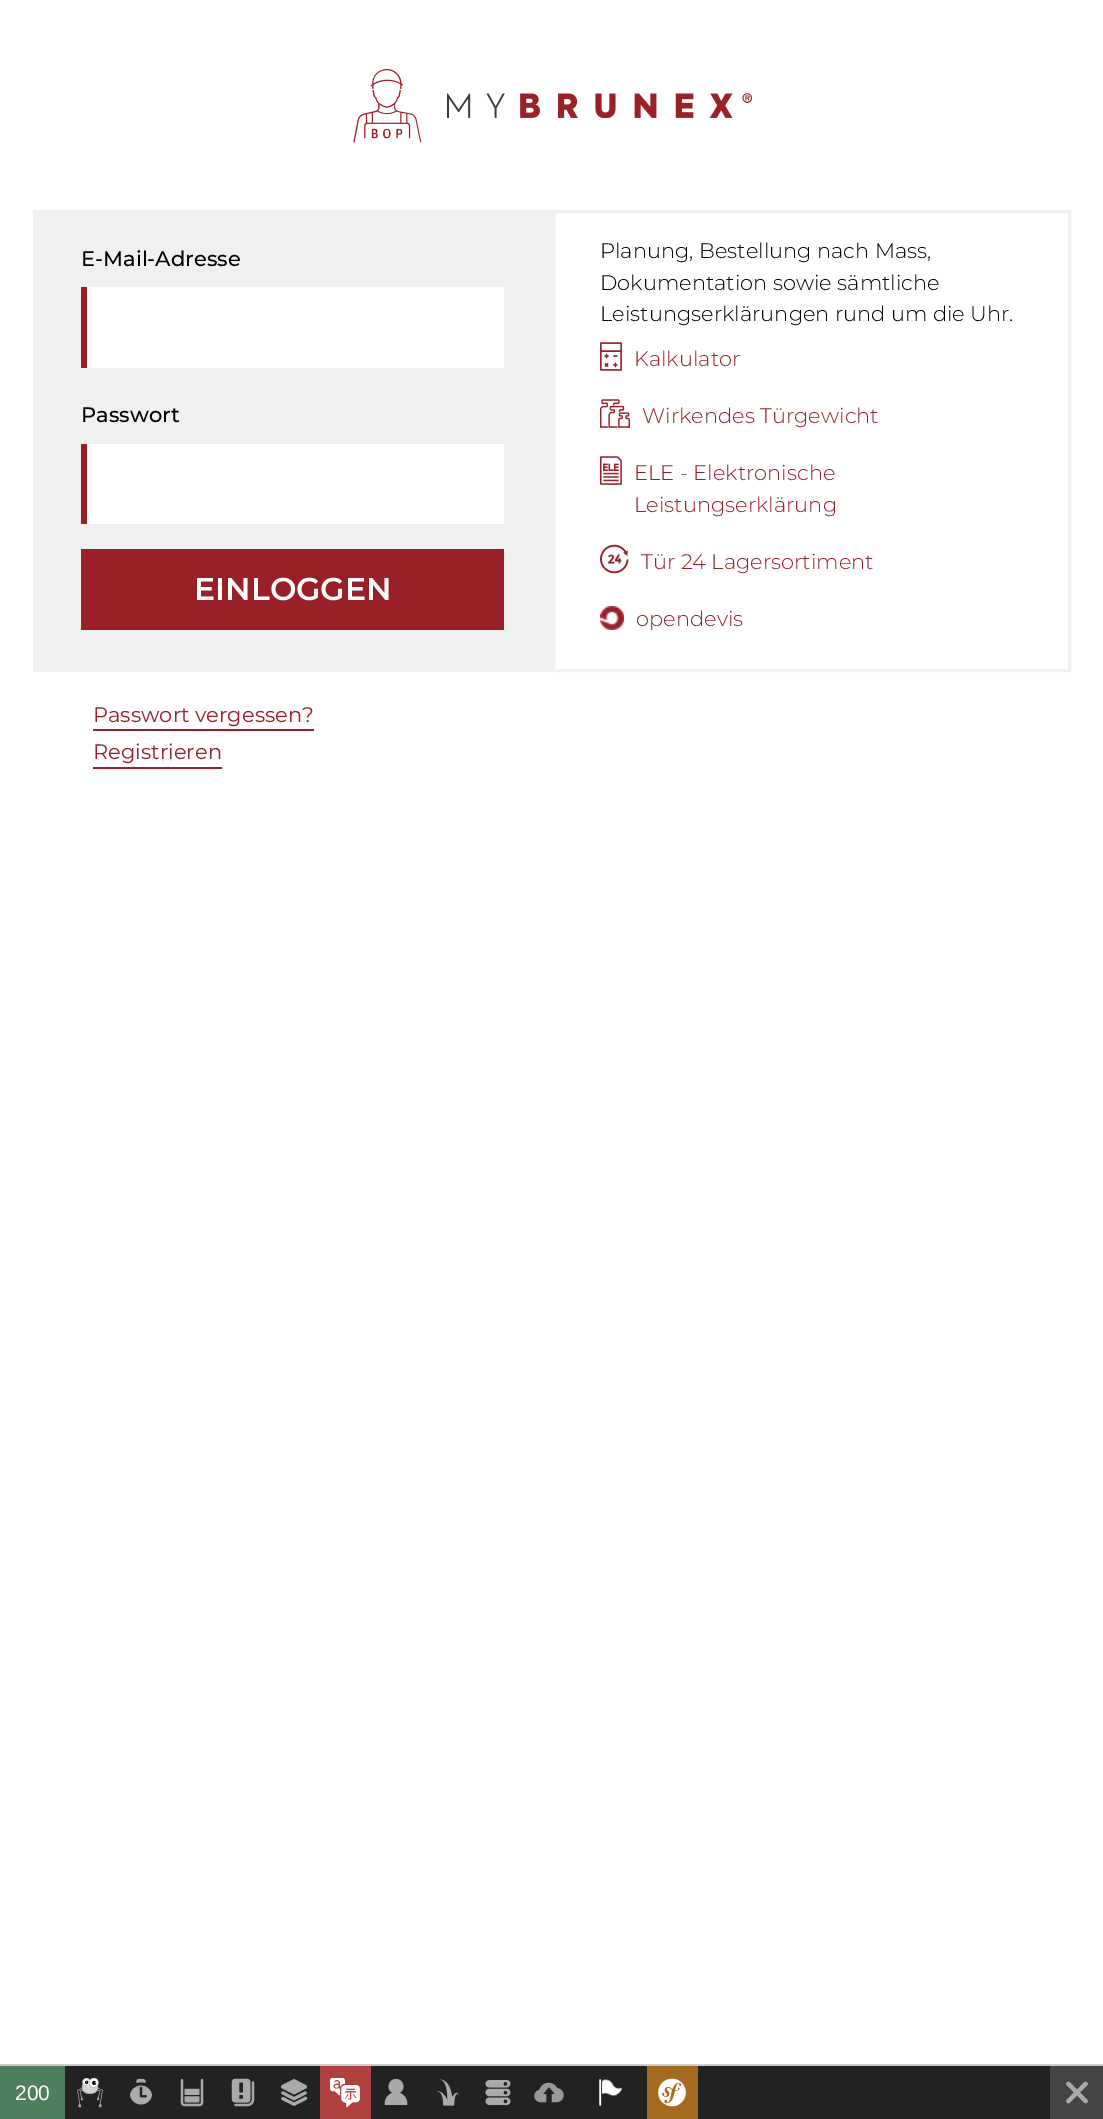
%!PS-Adobe-3.0
%%BoundingBox: 0 0 1103 2119
%%LanguageLevel: 3
%%Pages: 1
%%EndComments
%%BeginProlog
/drawimage { 5 dict begin { /h /w /y /x /name } { exch def } forall
  gsave x y translate w h scale
  w h 8 [w 0 0 h 0 0] name (r) file false 3 colorimage grestore end } def
%%EndProlog
%%BeginSetup
<< /PageSize [1103 2119] >> setpagedevice
%%EndSetup
%%Page: 1 1
0 2119 translate 1 -1 scale
4 setmiterlimit
1 setgray
0 0 1103 2119 rectfill
(images/1.raw) 353 68 69 75 drawimage
(images/2.raw) 447 93 305 25 drawimage
0.941 setgray
33 210 519 462 rectfill
1 setgray
87 287 417 81 rectfill
0.604 0.125 0.153 setrgbcolor
81 287 6 81 rectfill
1 setgray
87 444 417 80 rectfill
0.604 0.125 0.153 setrgbcolor
81 444 6 80 rectfill
81 549 423 81 rectfill
0.941 setgray
3 setlinewidth
553.5 211.5 516 459 rectstroke
(images/3.raw) 600 342 22 29 drawimage
(images/4.raw) 599 399 31 29 drawimage
(images/5.raw) 599 456 23 29 drawimage
(images/6.raw) 600 544 29 30 drawimage
(images/7.raw) 600 606 24 24 drawimage
0.604 0.125 0.153 setrgbcolor
93 729 221 2 rectfill
93 767 129 2 rectfill
0.8 setgray
0 2064 1103 2 rectfill
0.133 setgray
65 2066 985 53 rectfill
0.31 0.502 0.365 setrgbcolor
0 2066 65 53 rectfill
(images/8.raw) 77 2078 26 30 drawimage
(images/9.raw) 129 2078 24 27 drawimage
(images/10.raw) 180 2078 24 29 drawimage
(images/11.raw) 231 2078 24 29 drawimage
(images/12.raw) 281 2079 27 27 drawimage
0.69 0.255 0.243 setrgbcolor
320 2066 51 53 rectfill
(images/13.raw) 330 2078 30 30 drawimage
(images/14.raw) 384 2078 24 27 drawimage
(images/15.raw) 436 2079 23 27 drawimage
(images/16.raw) 485 2080 26 25 drawimage
(images/17.raw) 534 2082 30 21 drawimage
(images/18.raw) 599 2079 23 27 drawimage
0.643 0.416 0.122 setrgbcolor
647 2066 51 53 rectfill
(images/19.raw) 658 2078 28 29 drawimage
0.267 setgray
1050 2066 53 53 rectfill
(images/20.raw) 1066 2081 22 23 drawimage
/Montserrat-Thin [21 0 0 -21 0 0] selectfont
0 setgray
81 266 moveto (E-Mail-Adresse) show
81 422 moveto (Passwort) show
/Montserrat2-Thin [31.5 0 0 -31.5 0 0] selectfont
1 setgray
194 600 moveto (EINLOGGEN) show
/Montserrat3-Thin [21 0 0 -21 0 0] selectfont
0 setgray
600 258 moveto (Planung, Bestellung nach Mass,) show
600 290 moveto (Dokumentation sowie sämtliche) show
600 321 moveto (Leistungserklärungen rund um die Uhr.) show
0.604 0.125 0.153 setrgbcolor
634 366 moveto (Kalkulator) show
642 423 moveto (Wirkendes Türgewicht) show
634 480 moveto (ELE - Elektronische) show
634 512 moveto (Leistungserklärung) show
641 569 moveto (Tür 24 Lagersortiment) show
636 626 moveto (opendevis) show
/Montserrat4-Thin [21 0 0 -21 0 0] selectfont
93 722 moveto (Passwort vergessen?) show
93 759 moveto (Registrieren) show
/LiberationSans-Regular [21 0 0 -21 0 0] selectfont
1 setgray
15 2100 moveto (200) show
showpage
%%EOF
